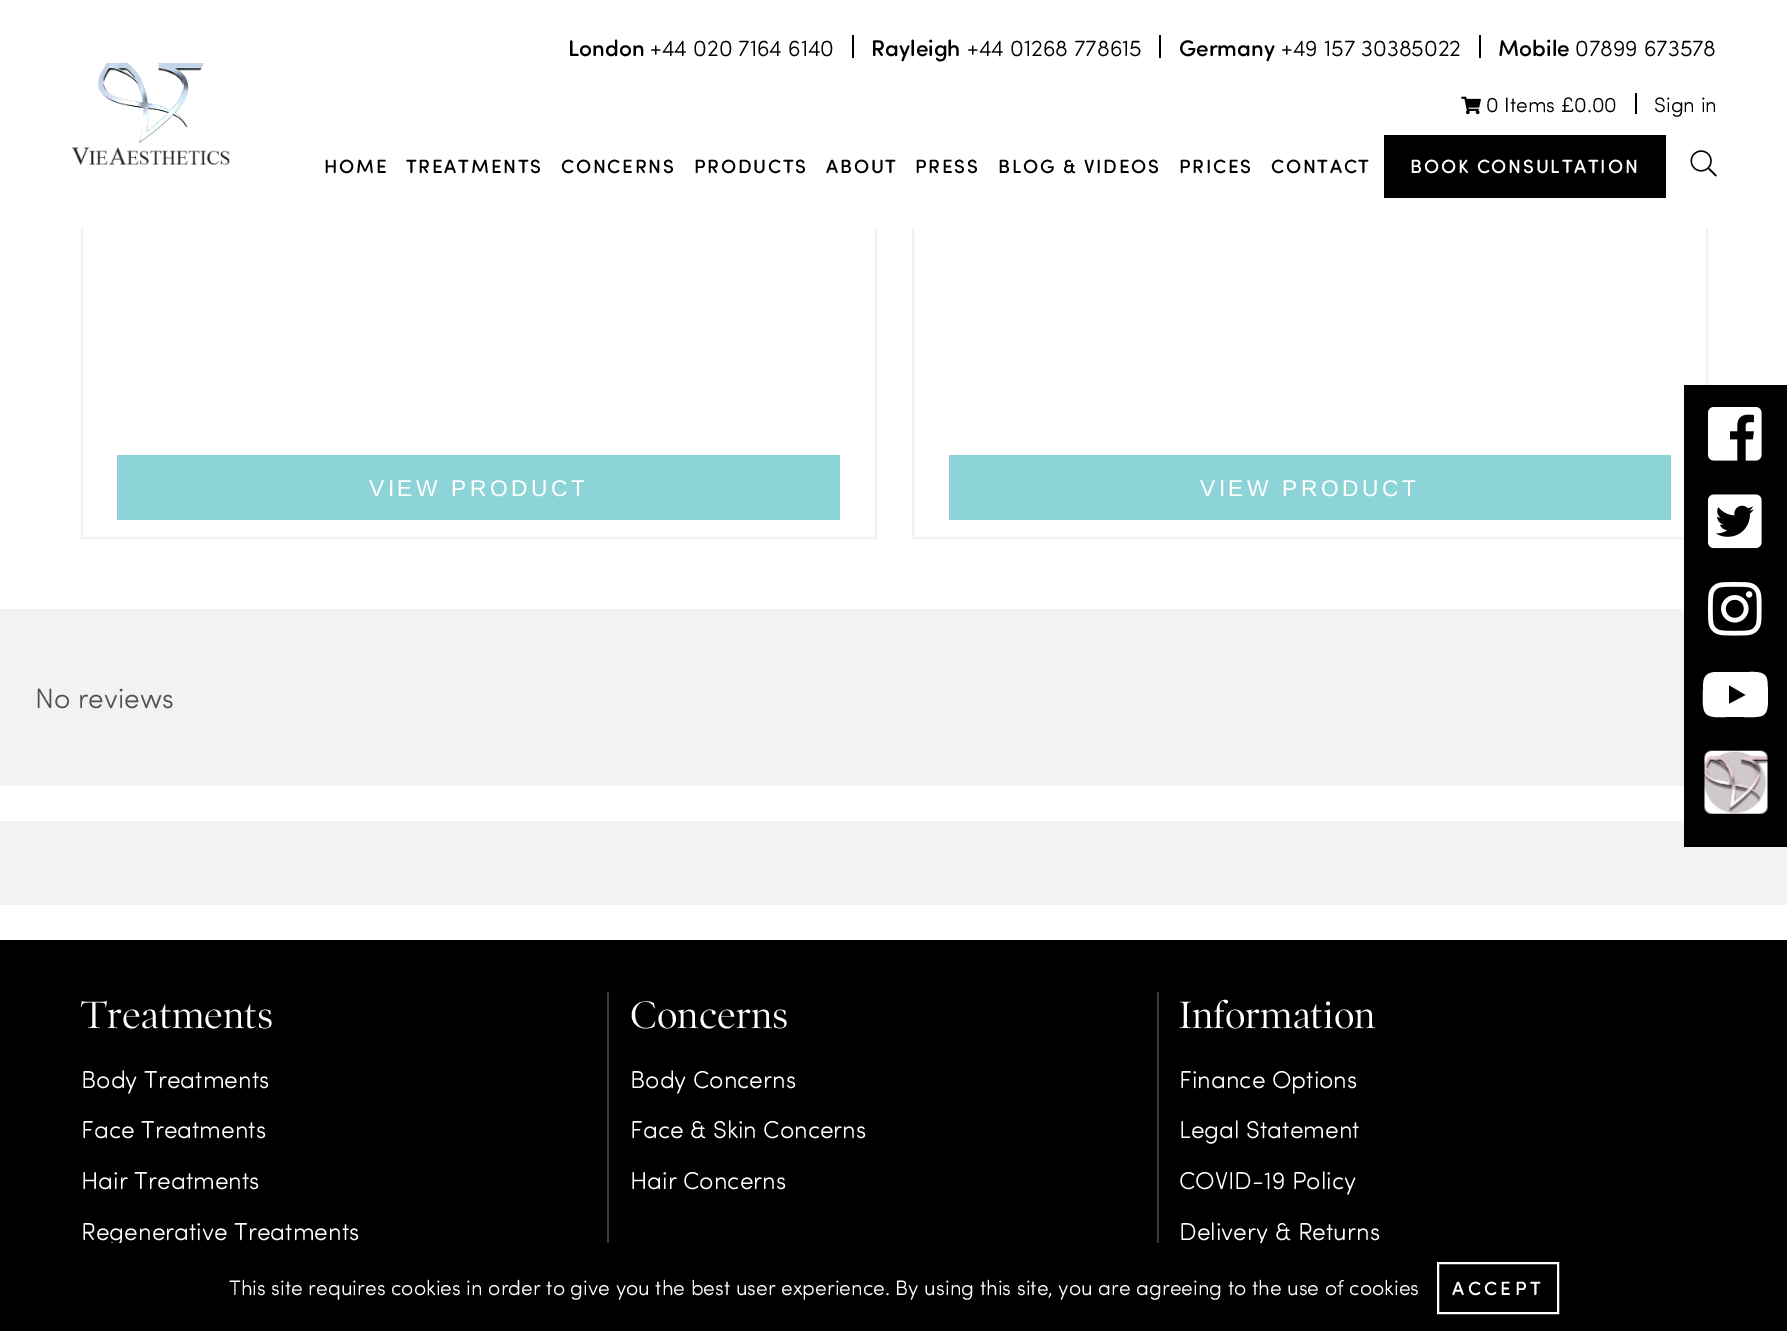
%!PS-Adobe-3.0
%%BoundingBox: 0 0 1787 1331
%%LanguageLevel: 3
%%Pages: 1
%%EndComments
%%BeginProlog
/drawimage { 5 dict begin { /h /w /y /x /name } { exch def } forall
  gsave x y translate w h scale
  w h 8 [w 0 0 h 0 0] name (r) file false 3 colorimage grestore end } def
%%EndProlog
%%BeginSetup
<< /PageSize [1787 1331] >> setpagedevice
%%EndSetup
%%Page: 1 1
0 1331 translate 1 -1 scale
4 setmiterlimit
1 setgray
0 0 1787 1331 rectfill
0.949 setgray
2 setlinewidth
82 -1 794 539 rectstroke
913 -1 794 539 rectstroke
1 setgray
81 0 1627 228 rectfill
(images/1.raw) 71 63 159 102 drawimage
0 setgray
852 35 2 23 rectfill
1159 35 2 23 rectfill
1479 35 2 23 rectfill
(images/2.raw) 1461 96 20 19 drawimage
1635 93 2 21 rectfill
1384 135 282 63 rectfill
(images/3.raw) 1690 150 27 27 drawimage
0.553 0.831 0.847 setrgbcolor
117 455 723 65 rectfill
949 455 722 65 rectfill
0.949 setgray
0 821 1787 84 rectfill
0 setgray
1684 385 103 462 rectfill
(images/4.raw) 1708 407 54 54 drawimage
(images/5.raw) 1708 494 54 55 drawimage
(images/6.raw) 1708 582 54 54 drawimage
1 setgray
newpath 1767 679 moveto 1765 671 1755 672 1749 672 curveto 1730 672 lineto 1715 672 lineto 1704 673 1703 679 1703 689 curveto 1703 696 1702 704 1704 710 curveto 1706 719 1720 717 1726 717 curveto 1743 717 lineto 1762 717 1768 719 1768 699 curveto 1768 692 1768 685 1767 679 curveto closepath 1729 704 moveto 1729 685 lineto 1746 695 lineto closepath fill
(images/7.raw) 1704 750 64 64 drawimage
0.949 setgray
0 609 1684 177 rectfill
0 setgray
0 940 1787 303 rectfill
0.231 setgray
607 992 2 251 rectfill
1157 992 2 251 rectfill
/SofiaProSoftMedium-Medium [22.75 0 0 -22.75 0 0] selectfont
0 setgray
568 56 moveto (London) show
/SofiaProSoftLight-Light [22.75 0 0 -22.75 0 0] selectfont
650 56 moveto (+44 020 7164 6140) show
/SofiaProSoftMedium-Medium [22.75 0 0 -22.75 0 0] selectfont
871 56 moveto (Rayleigh) show
/SofiaProSoftLight-Light [22.75 0 0 -22.75 0 0] selectfont
967 56 moveto (+44 01268 778615) show
/SofiaProSoftMedium-Medium [22.75 0 0 -22.75 0 0] selectfont
1179 56 moveto (Germany) show
/SofiaProSoftLight-Light [22.75 0 0 -22.75 0 0] selectfont
1281 56 moveto (+49 157 30385022) show
/SofiaProSoftMedium-Medium [22.75 0 0 -22.75 0 0] selectfont
1498 56 moveto (Mobile) show
/SofiaProSoftLight-Light [22.75 0 0 -22.75 0 0] selectfont
1575 56 moveto (07899 673578) show
/SofiaProSoftLight-Light [21 0 0 -21 0 0] selectfont
1486 112 moveto (0 Items £0.00) show
1654 112 moveto (Sign in) show
/SofiaProSoftMedium-Medium [19.25 0 0 -19.25 0 0] selectfont
324 173 moveto 1.75 0 (HOME) ashow
406 173 moveto 1.75 0 (TREATMENTS) ashow
561 173 moveto 1.75 0 (CONCERNS) ashow
694 173 moveto 1.75 0 (PRODUCTS) ashow
826 173 moveto 1.75 0 (ABOUT) ashow
915 173 moveto 1.75 0 (PRESS) ashow
998 173 moveto 1.75 0 (BLOG & VIDEOS) ashow
1179 173 moveto 1.75 0 (PRICES) ashow
1271 173 moveto 1.75 0 (CONTACT) ashow
1 setgray
1410 173 moveto 1.75 0 (BOOK CONSULTATION) ashow
/LiberationSans-Regular [22.75 0 0 -22.75 0 0] selectfont
369 496 moveto 3.5 0 (VIEW PRODUCT) ashow
1200 496 moveto 3.5 0 (VIEW PRODUCT) ashow
/SofiaProSoftLight-Light [28 0 0 -28 0 0] selectfont
0.322 setgray
35 708 moveto (No reviews) show
/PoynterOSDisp-Regular [38.5 0 0 -38.5 0 0] selectfont
1 setgray
81 1028 moveto (Treatments) show
/SofiaProSoftLight-Light [24.5 0 0 -24.5 0 0] selectfont
81 1088 moveto (Body Treatments) show
81 1138 moveto (Face Treatments) show
81 1189 moveto (Hair Treatments) show
81 1240 moveto (Regenerative Treatments) show
/PoynterOSDisp-Regular [38.5 0 0 -38.5 0 0] selectfont
630 1028 moveto (Concerns) show
/SofiaProSoftLight-Light [24.5 0 0 -24.5 0 0] selectfont
630 1088 moveto (Body Concerns) show
630 1138 moveto (Face & Skin Concerns) show
630 1189 moveto (Hair Concerns) show
/PoynterOSDisp-Regular [38.5 0 0 -38.5 0 0] selectfont
1179 1028 moveto (Information) show
/SofiaProSoftLight-Light [24.5 0 0 -24.5 0 0] selectfont
1179 1088 moveto (Finance Options) show
1179 1138 moveto (Legal Statement) show
1179 1189 moveto (COVID-19 Policy) show
1179 1240 moveto (Delivery & Returns) show
0 setgray
0 1243 1787 88 rectfill
/SofiaProSoftLight-Light [21 0 0 -21 0 0] selectfont
1 setgray
229 1295 moveto (This site requires cookies in order to give you the best user experience. By using this site, you are agreeing to the use of cookies) show
1438 1263 120 50 rectstroke
/SofiaProSoftMedium-Medium [19.25 0 0 -19.25 0 0] selectfont
1452 1295 moveto 3.5 0 (ACCEPT) ashow
showpage
%%EOF
